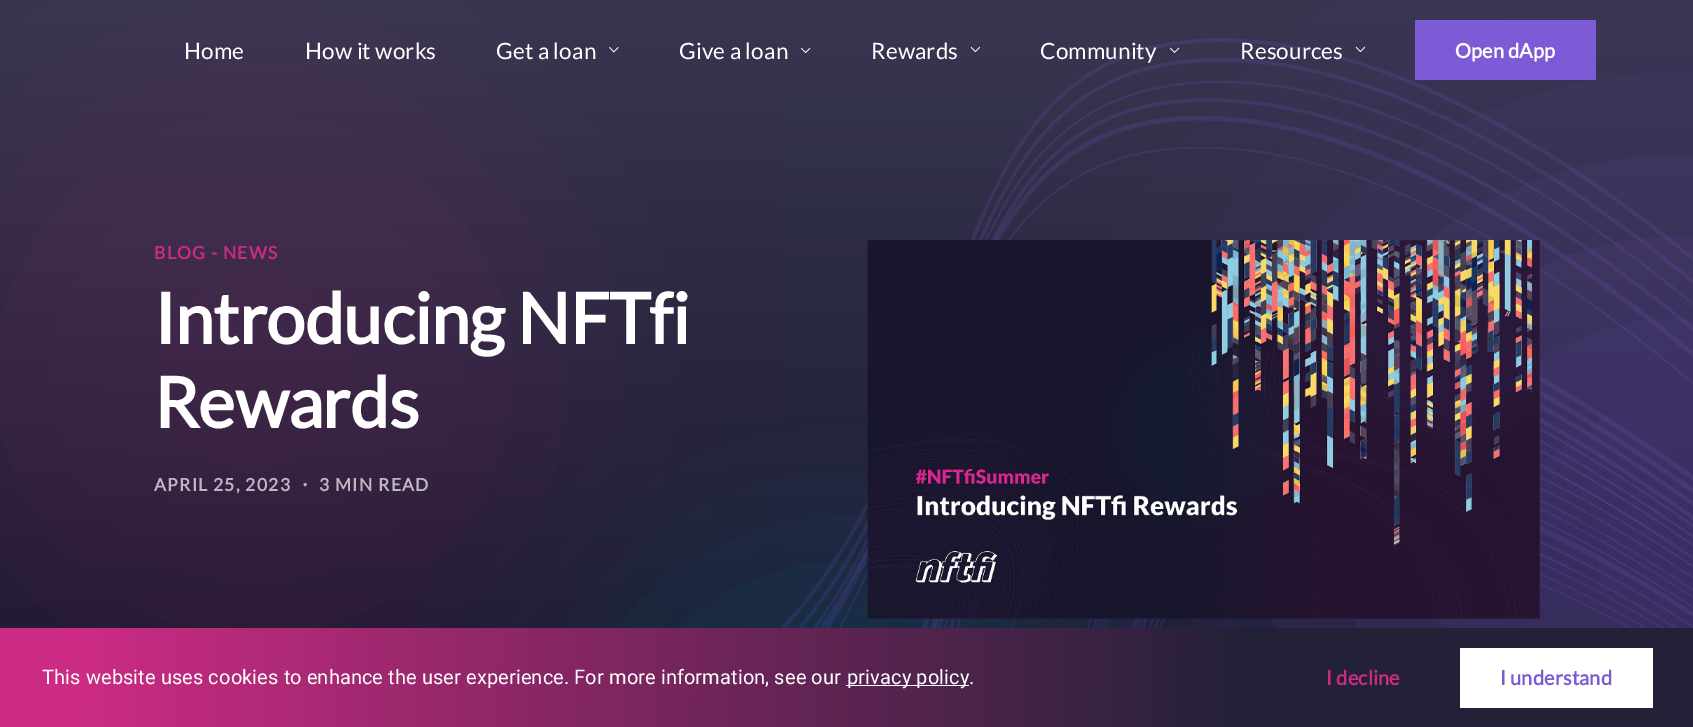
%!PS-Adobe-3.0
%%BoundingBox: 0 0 1693 727
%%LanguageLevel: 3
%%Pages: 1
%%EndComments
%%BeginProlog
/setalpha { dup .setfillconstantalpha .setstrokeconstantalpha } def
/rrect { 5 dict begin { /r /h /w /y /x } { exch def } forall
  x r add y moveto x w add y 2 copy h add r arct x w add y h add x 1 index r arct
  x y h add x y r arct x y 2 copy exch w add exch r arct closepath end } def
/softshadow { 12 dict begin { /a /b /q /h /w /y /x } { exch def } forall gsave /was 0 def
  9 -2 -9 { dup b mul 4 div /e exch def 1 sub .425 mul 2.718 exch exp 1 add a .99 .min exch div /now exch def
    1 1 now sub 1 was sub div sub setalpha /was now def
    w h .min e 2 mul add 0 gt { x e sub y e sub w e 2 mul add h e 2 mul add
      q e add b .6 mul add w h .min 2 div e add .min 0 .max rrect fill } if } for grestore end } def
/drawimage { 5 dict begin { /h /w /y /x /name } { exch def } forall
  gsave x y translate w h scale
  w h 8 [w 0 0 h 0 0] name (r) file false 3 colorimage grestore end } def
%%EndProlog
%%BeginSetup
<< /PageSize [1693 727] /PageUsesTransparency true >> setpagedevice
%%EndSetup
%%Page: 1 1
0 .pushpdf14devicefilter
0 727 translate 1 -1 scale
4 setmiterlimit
1 setgray
0 0 1693 727 rectfill
gsave newpath 0 0 moveto 1693 0 lineto 1693 628 lineto 0 628 lineto closepath clip newpath
<< /ShadingType 2 /ColorSpace /DeviceRGB /Coords [847 0 847 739] /Extend [true true] /Function << /FunctionType 2 /Domain [0 1] /C0 [0.22 0.212 0.318] /C1 [0.09 0.086 0.173] /N 1 >> >> shfill grestore
(images/6.raw) 781 38 912 590 drawimage
0.796 0.169 0.514 setrgbcolor
-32 89 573 574 286.5 109 0.12 softshadow
(images/1.raw) 609 47 10 6 drawimage
(images/2.raw) 800 47 11 7 drawimage
0.494 0.357 0.839 setrgbcolor
1310 196 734 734 367 163.5 0.29 softshadow
(images/3.raw) 970 46 10 7 drawimage
(images/4.raw) 1169 47 11 6 drawimage
(images/5.raw) 1355 46 11 7 drawimage
1415 20 181 60 rectfill
0 0.639 0.816 setrgbcolor
574 539 547 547 273.5 90 0.14 softshadow
(images/7.raw) 867 240 673 379 drawimage
gsave newpath 0 628 moveto 1693 628 lineto 1693 727 lineto 0 727 lineto closepath clip newpath
<< /ShadingType 2 /ColorSpace /DeviceRGB /Coords [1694 684 -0.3 671] /Extend [true true] /Function << /FunctionType 3 /Domain [0 1] /Functions [<< /FunctionType 2 /Domain [0 1] /C0 [0.133 0.129 0.22] /C1 [0.133 0.129 0.22] /N 1 >> << /FunctionType 2 /Domain [0 1] /C0 [0.133 0.129 0.22] /C1 [0.796 0.169 0.514] /N 1 >> << /FunctionType 2 /Domain [0 1] /C0 [0.796 0.169 0.514] /C1 [0.796 0.169 0.514] /N 1 >>] /Bounds [0.26 0.95] /Encode [0 1 0 1 0 1] >> >> shfill grestore
1 setgray
846 685 123 1 rectfill
1460 648 193 60 rectfill
/Lato-Regular [22.5 0 0 -22.5 0 0] selectfont
184 59 moveto 0.12 0 (Home) ashow
305 59 moveto 0.12 0 (How it works) ashow
496 59 moveto 0.12 0 (Get a loan) ashow
679 59 moveto 0.12 0 (Give a loan) ashow
871 59 moveto 0.12 0 (Rewards) ashow
1040 59 moveto 0.12 0 (Community) ashow
1240 59 moveto 0.12 0 (Resources) ashow
/Lato-Bold [20 0 0 -20 0 0] selectfont
1455 58 moveto 0.12 0 (Open dApp) ashow
/Lato-Bold [17.5 0 0 -17.5 0 0] selectfont
0.796 0.169 0.514 setrgbcolor
154 259 moveto 1.25 0 (BLOG - NEWS) ashow
/Lato-Bold [70 0 0 -70 0 0] selectfont
1 setgray
154 344 moveto -0.6 0 (Introducing NFTfi) ashow
154 428 moveto -0.6 0 (Rewards) ashow
/Lato-Bold [17.5 0 0 -17.5 0 0] selectfont
0.745 0.722 0.761 setrgbcolor
154 491 moveto 1.25 0 (APRIL 25, 2023) ashow
/WenQuanYiZenHei-Bold [17.5 0 0 -17.5 0 0] selectfont
296 491 moveto 1.25 0 (・) ashow
/Lato-Bold [17.5 0 0 -17.5 0 0] selectfont
319 491 moveto 1.25 0 (3 MIN READ) ashow
/Roboto-Regular [20 0 0 -20 0 0] selectfont
1 setgray
42 684 moveto 0.12 0 (This website uses cookies to enhance the user experience. For more information, see our) ashow
847 684 moveto 0.12 0 (privacy policy.) ashow
/Lato-Bold [20 0 0 -20 0 0] selectfont
0.796 0.169 0.514 setrgbcolor
1326 685 moveto 0.12 0 (I decline) ashow
0.494 0.357 0.839 setrgbcolor
1500 685 moveto 0.12 0 (I understand) ashow
.poppdf14devicefilter showpage
%%EOF
